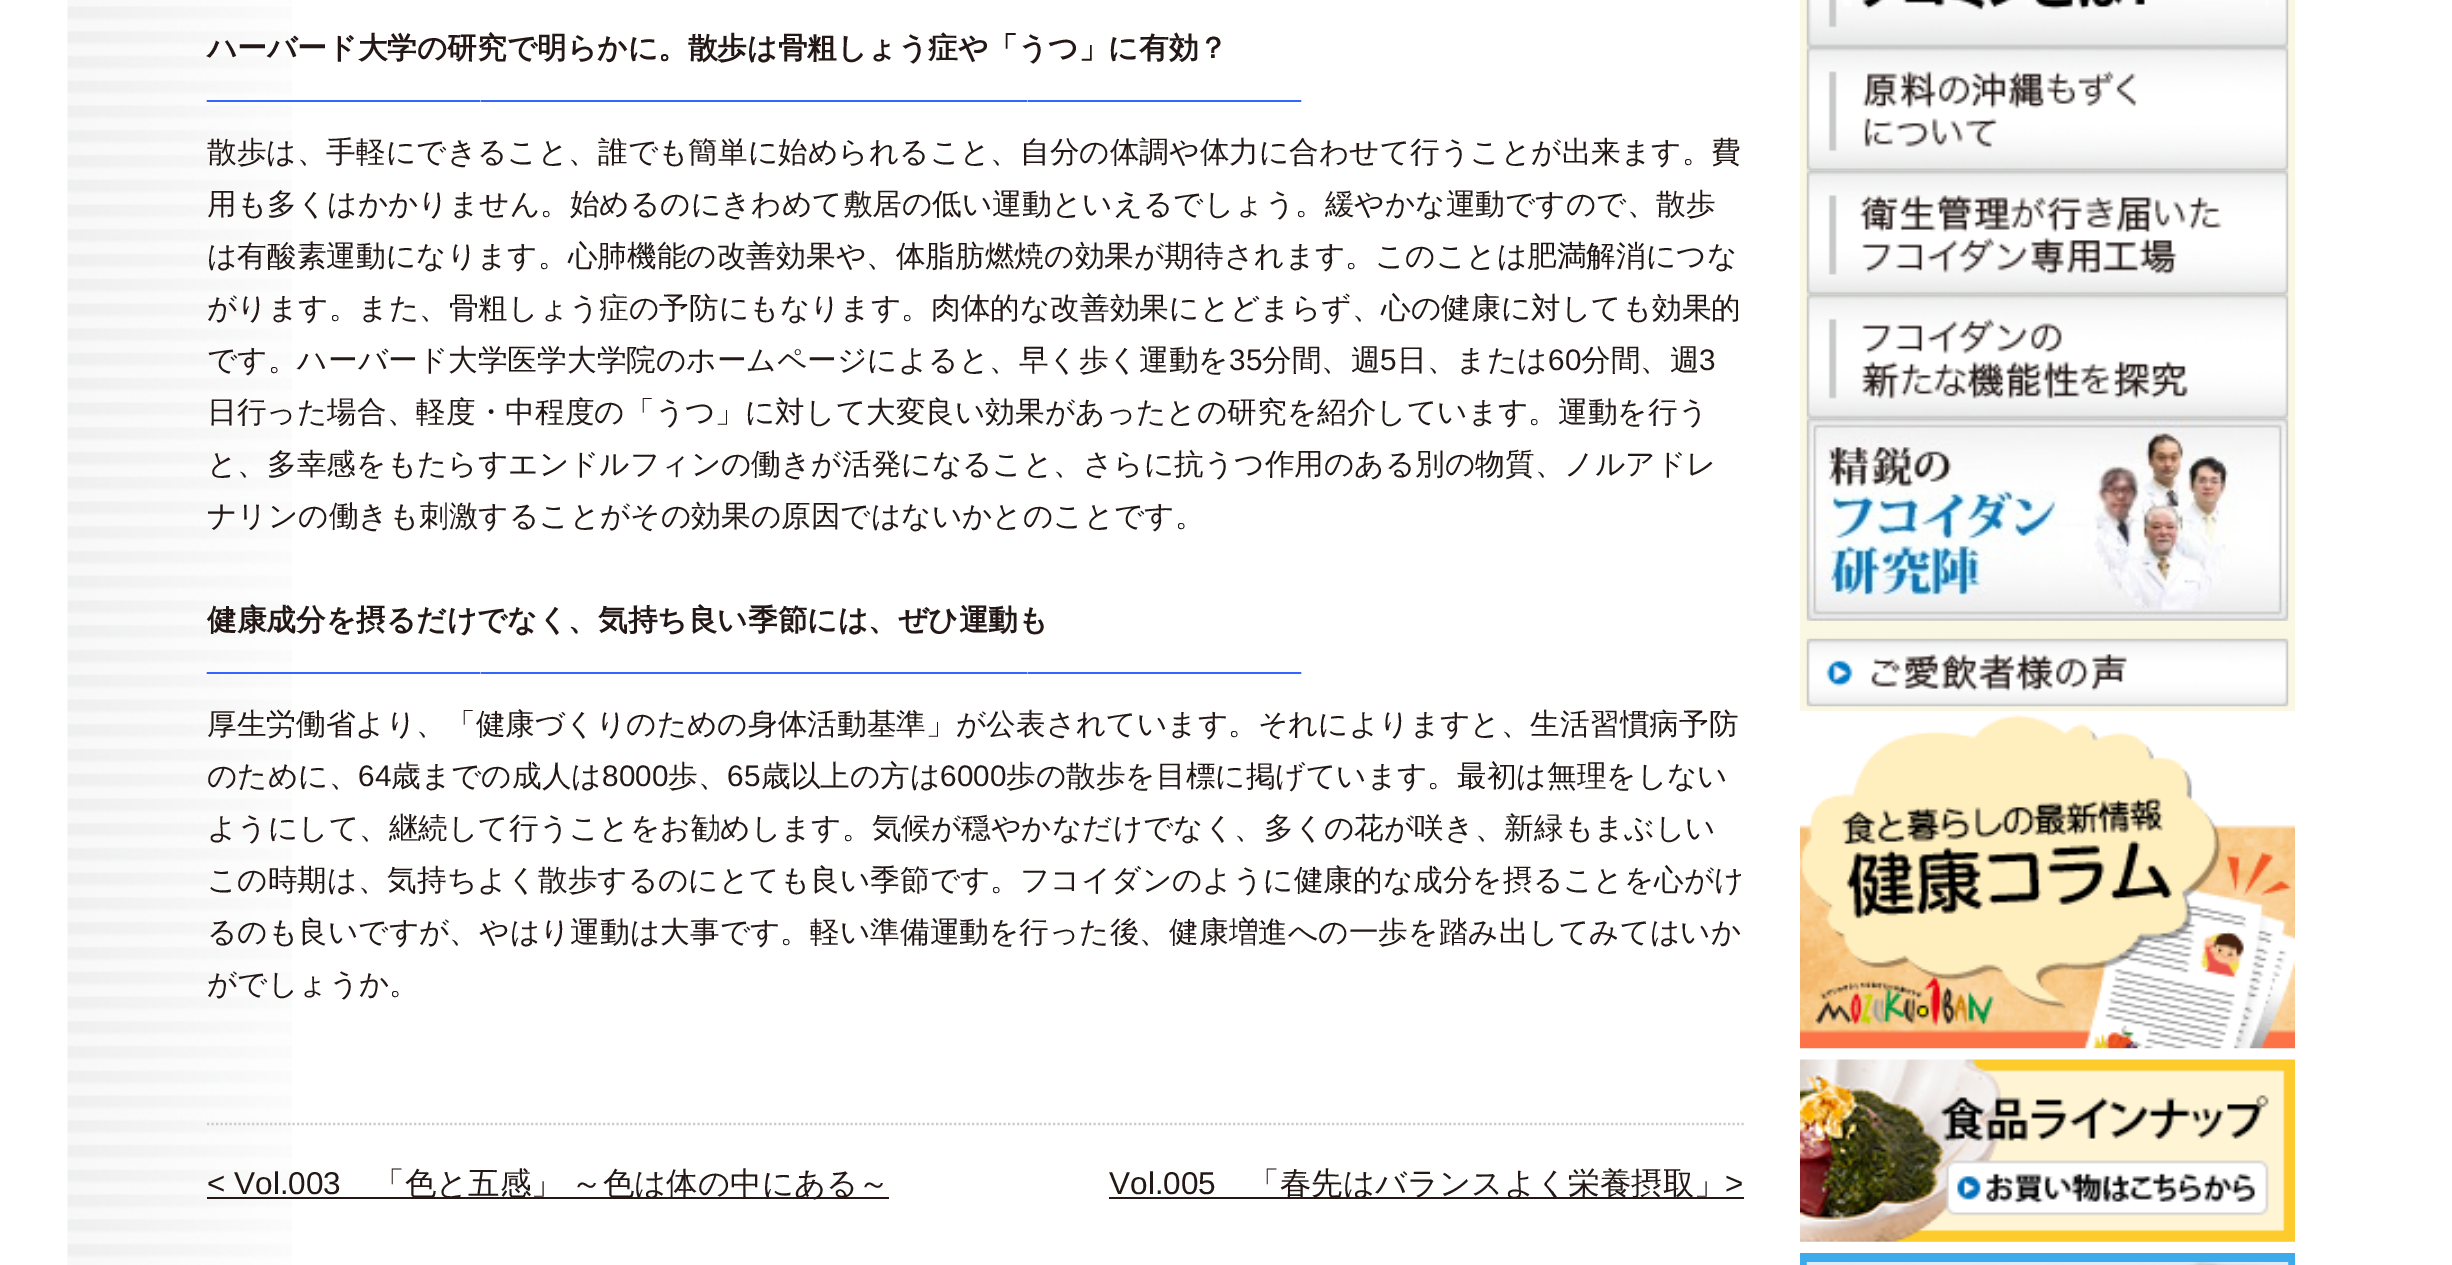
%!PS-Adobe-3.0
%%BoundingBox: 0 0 2452 1265
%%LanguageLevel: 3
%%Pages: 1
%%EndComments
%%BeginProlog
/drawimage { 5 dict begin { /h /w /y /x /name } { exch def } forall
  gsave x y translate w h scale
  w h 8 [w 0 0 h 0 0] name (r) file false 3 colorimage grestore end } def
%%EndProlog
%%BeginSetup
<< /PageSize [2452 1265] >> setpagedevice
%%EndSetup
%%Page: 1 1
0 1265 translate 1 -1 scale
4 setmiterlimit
1 setgray
0 0 2452 1265 rectfill
(images/1.raw) 67 0 225 1265 drawimage
0.8 setgray
2.2 setlinewidth
[2.25 2.25] 0 setdash
newpath 207 1124 moveto 1744 1124 lineto stroke
0.137 0.094 0.082 setrgbcolor
207 1197 682 2 rectfill
1109 1197 635 2 rectfill
0.98 0.969 0.886 setrgbcolor
1800 0 495 711 rectfill
(images/2.raw) 1806 0 483 47 drawimage
(images/3.raw) 1806 47 483 124 drawimage
(images/4.raw) 1806 171 483 124 drawimage
(images/5.raw) 1806 294 483 125 drawimage
(images/6.raw) 1806 418 483 203 drawimage
(images/7.raw) 1806 638 483 69 drawimage
(images/8.raw) 1800 714 495 335 drawimage
(images/9.raw) 1800 1059 495 183 drawimage
0.239 0.667 0.922 setrgbcolor
1800 1253 495 12 rectfill
(images/10.raw) 1806 1262 483 3 drawimage
/WenQuanYiZenHei-Bold [29.7 0 0 -29.7 0 0] selectfont
0.137 0.094 0.082 setrgbcolor
207 58 moveto (ハーバード大学の研究で明らかに。散歩は骨粗しょう症や「うつ」に有効？) show
/LiberationSans-Regular [29.7 0 0 -29.7 0 0] selectfont
0.2 0.4 1 setrgbcolor
207 110 moveto (────────────────────────────────────────────────────) show
/WenQuanYiZenHei-Medium [29.7 0 0 -29.7 0 0] selectfont
0.137 0.094 0.082 setrgbcolor
207 162 moveto (散歩は、手軽にできること、誰でも簡単に始められること、自分の体調や体力に合わせて行うことが出来ます。費) show
207 214 moveto (用も多くはかかりません。始めるのにきわめて敷居の低い運動といえるでしょう。緩やかな運動ですので、散歩) show
207 266 moveto (は有酸素運動になります。心肺機能の改善効果や、体脂肪燃焼の効果が期待されます。このことは肥満解消につな) show
207 318 moveto (がります。また、骨粗しょう症の予防にもなります。肉体的な改善効果にとどまらず、心の健康に対しても効果的) show
207 370 moveto (です。ハーバード大学医学大学院のホームページによると、早く歩く運動を) show
/LiberationSans-Regular [29.7 0 0 -29.7 0 0] selectfont
1229 370 moveto (35) show
/WenQuanYiZenHei-Medium [29.7 0 0 -29.7 0 0] selectfont
1262 370 moveto (分間、週) show
/LiberationSans-Regular [29.7 0 0 -29.7 0 0] selectfont
1380 370 moveto (5) show
/WenQuanYiZenHei-Medium [29.7 0 0 -29.7 0 0] selectfont
1397 370 moveto (日、または) show
/LiberationSans-Regular [29.7 0 0 -29.7 0 0] selectfont
1548 370 moveto (60) show
/WenQuanYiZenHei-Medium [29.7 0 0 -29.7 0 0] selectfont
1581 370 moveto (分間、週) show
/LiberationSans-Regular [29.7 0 0 -29.7 0 0] selectfont
1699 370 moveto (3) show
/WenQuanYiZenHei-Medium [29.7 0 0 -29.7 0 0] selectfont
207 422 moveto (日行った場合、軽度・中程度の「うつ」に対して大変良い効果があったとの研究を紹介しています。運動を行う) show
207 474 moveto (と、多幸感をもたらすエンドルフィンの働きが活発になること、さらに抗うつ作用のある別の物質、ノルアドレ) show
207 526 moveto (ナリンの働きも刺激することがその効果の原因ではないかとのことです。) show
/WenQuanYiZenHei-Bold [29.7 0 0 -29.7 0 0] selectfont
207 630 moveto (健康成分を摂るだけでなく、気持ち良い季節には、ぜひ運動も) show
/LiberationSans-Regular [29.7 0 0 -29.7 0 0] selectfont
0.2 0.4 1 setrgbcolor
207 682 moveto (────────────────────────────────────────────────────) show
/WenQuanYiZenHei-Medium [29.7 0 0 -29.7 0 0] selectfont
0.137 0.094 0.082 setrgbcolor
207 734 moveto (厚生労働省より、「健康づくりのための身体活動基準」が公表されています。それによりますと、生活習慣病予防) show
207 786 moveto (のために、) show
/LiberationSans-Regular [29.7 0 0 -29.7 0 0] selectfont
358 786 moveto (64) show
/WenQuanYiZenHei-Medium [29.7 0 0 -29.7 0 0] selectfont
391 786 moveto (歳までの成人は) show
/LiberationSans-Regular [29.7 0 0 -29.7 0 0] selectfont
602 786 moveto (8000) show
/WenQuanYiZenHei-Medium [29.7 0 0 -29.7 0 0] selectfont
668 786 moveto (歩、) show
/LiberationSans-Regular [29.7 0 0 -29.7 0 0] selectfont
727 786 moveto (65) show
/WenQuanYiZenHei-Medium [29.7 0 0 -29.7 0 0] selectfont
761 786 moveto (歳以上の方は) show
/LiberationSans-Regular [29.7 0 0 -29.7 0 0] selectfont
940 786 moveto (6000) show
/WenQuanYiZenHei-Medium [29.7 0 0 -29.7 0 0] selectfont
1006 786 moveto (歩の散歩を目標に掲げています。最初は無理をしない) show
207 838 moveto (ようにして、継続して行うことをお勧めします。気候が穏やかなだけでなく、多くの花が咲き、新緑もまぶしい) show
207 890 moveto (この時期は、気持ちよく散歩するのにとても良い季節です。フコイダンのように健康的な成分を摂ることを心がけ) show
207 942 moveto (るのも良いですが、やはり運動は大事です。軽い準備運動を行った後、健康増進への一歩を踏み出してみてはいか) show
207 994 moveto (がでしょうか。) show
/LiberationSans-Regular [31.5 0 0 -31.5 0 0] selectfont
207 1194 moveto (< Vol.003) show
/WenQuanYiZenHei-Medium [31.5 0 0 -31.5 0 0] selectfont
373 1194 moveto -1 0 32 (「色と五感」 ～色は体の中にある～) widthshow
/LiberationSans-Regular [31.5 0 0 -31.5 0 0] selectfont
1109 1194 moveto (Vol.005) show
/WenQuanYiZenHei-Medium [31.5 0 0 -31.5 0 0] selectfont
1248 1194 moveto (「春先はバランスよく栄養摂取」) show
/LiberationSans-Regular [31.5 0 0 -31.5 0 0] selectfont
1725 1194 moveto (>) show
showpage
%%EOF
